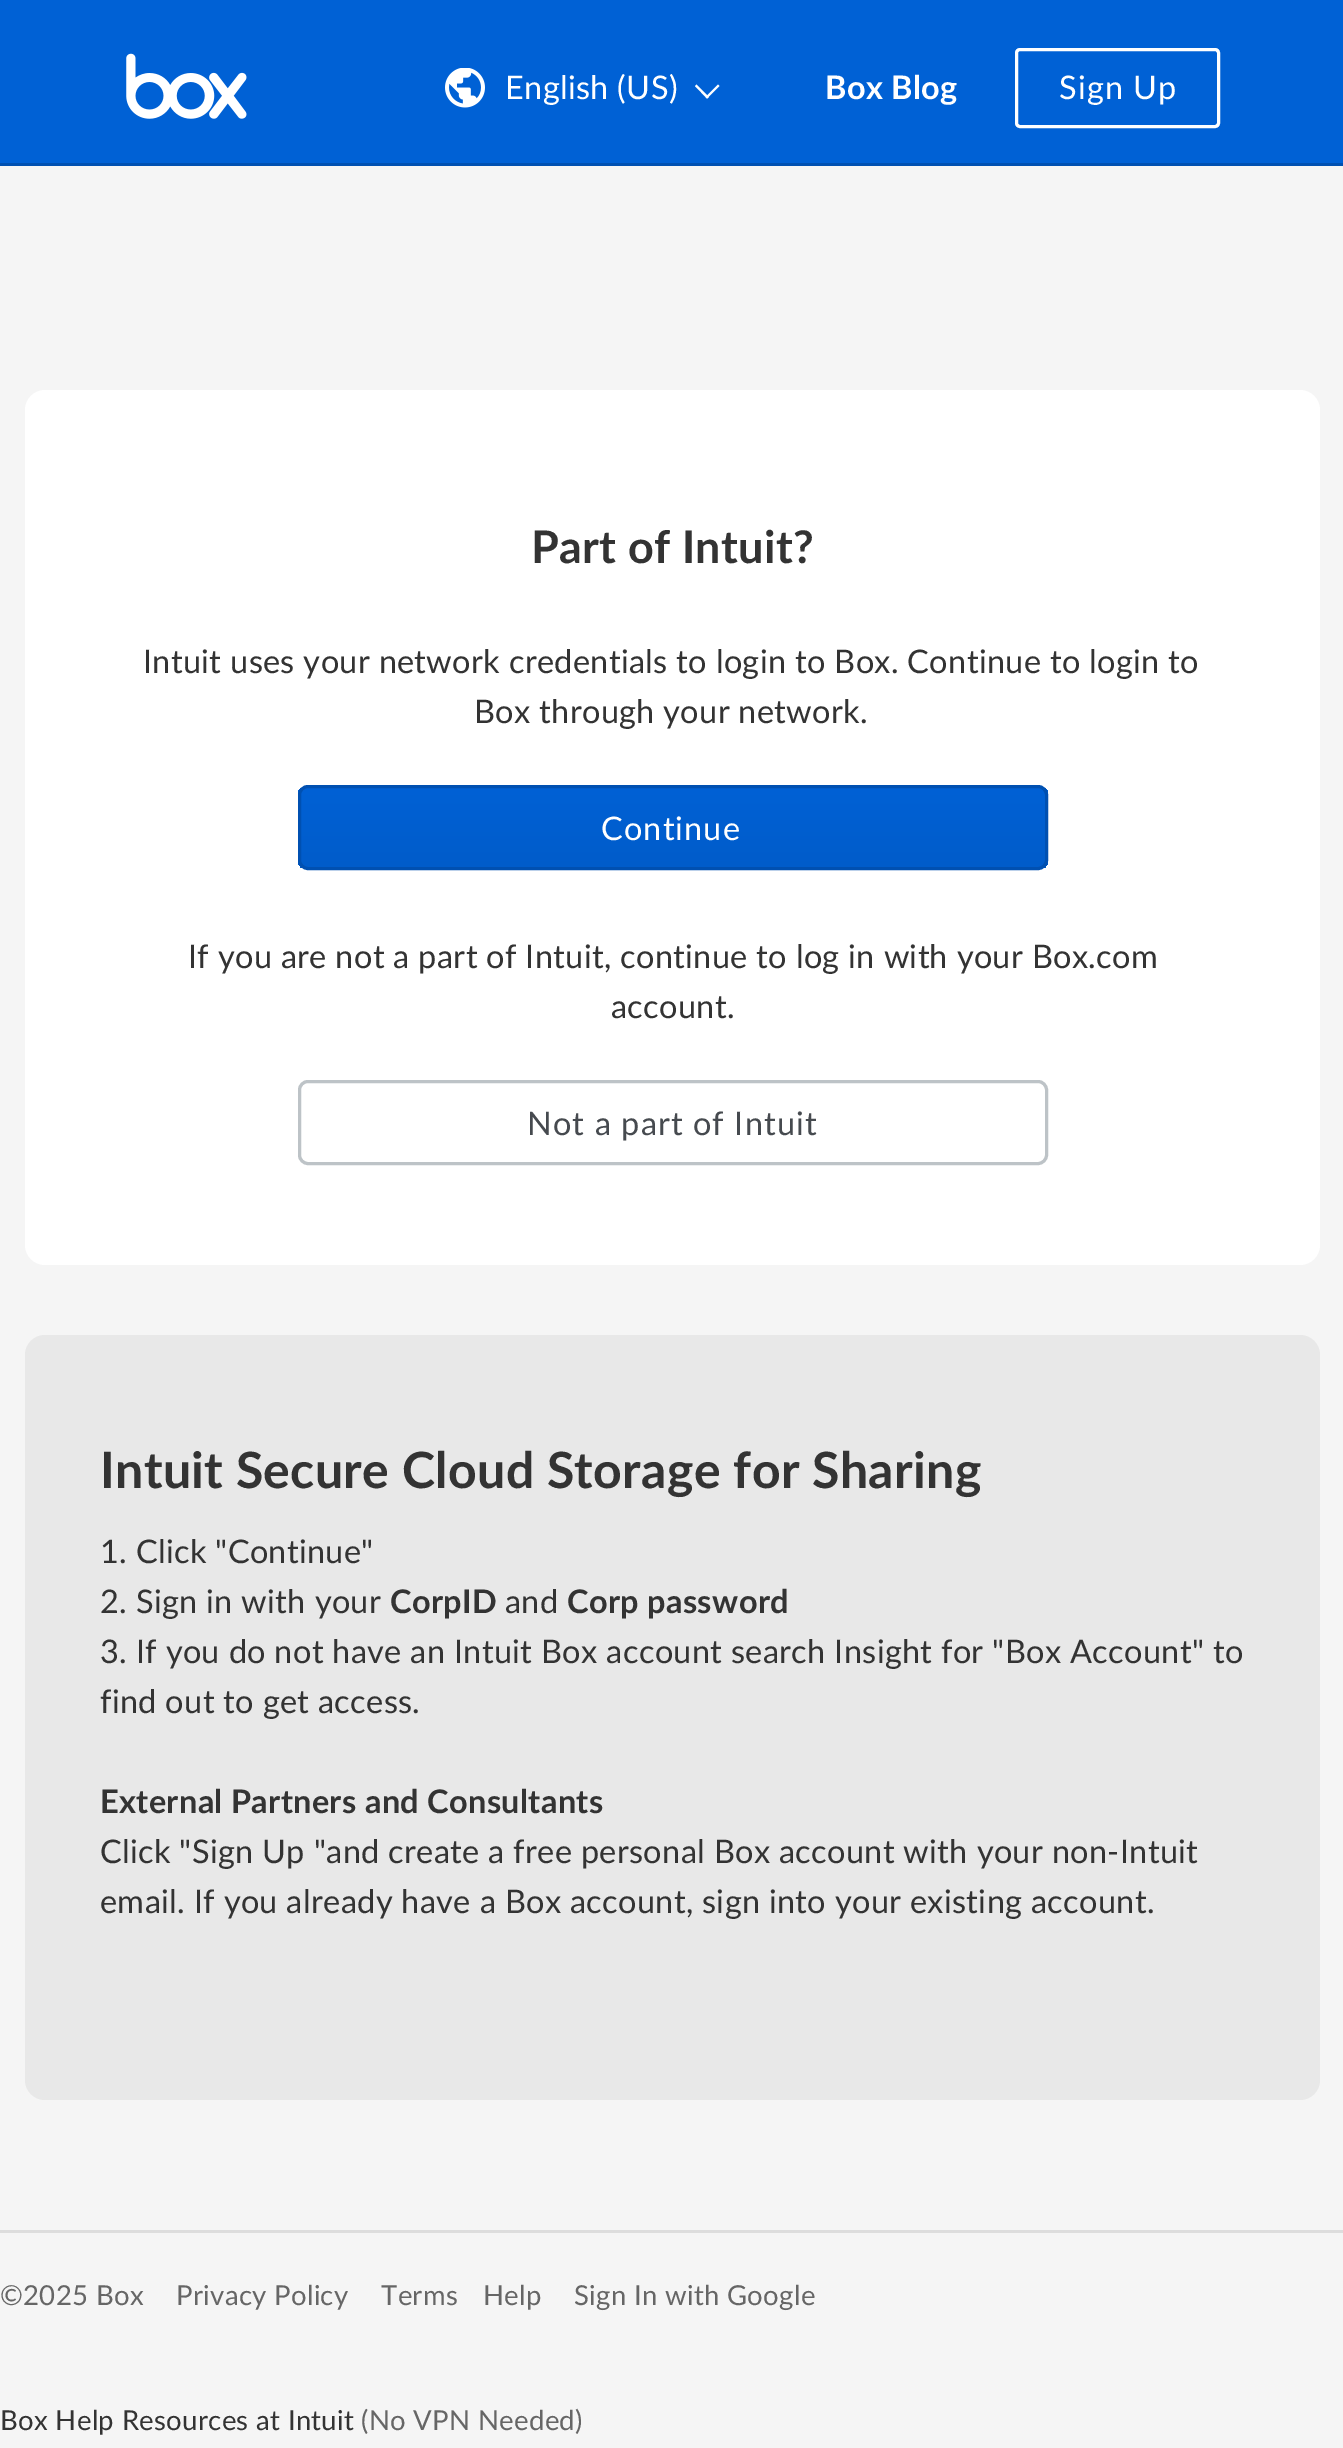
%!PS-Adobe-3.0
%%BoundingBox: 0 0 1343 2448
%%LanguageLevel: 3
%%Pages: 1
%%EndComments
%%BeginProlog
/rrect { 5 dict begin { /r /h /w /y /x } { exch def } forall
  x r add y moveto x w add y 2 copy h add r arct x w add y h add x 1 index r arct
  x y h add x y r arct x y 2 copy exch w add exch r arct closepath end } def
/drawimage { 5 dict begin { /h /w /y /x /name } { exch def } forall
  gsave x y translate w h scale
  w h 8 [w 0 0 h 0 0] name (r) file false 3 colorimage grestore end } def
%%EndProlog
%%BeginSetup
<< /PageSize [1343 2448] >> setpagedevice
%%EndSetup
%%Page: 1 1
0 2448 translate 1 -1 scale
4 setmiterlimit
0.961 setgray
0 0 1343 2448 rectfill
0 0.38 0.835 setrgbcolor
0 0 1343 163 rectfill
0 0.314 0.694 setrgbcolor
0 163 1343 3 rectfill
(images/1.raw) 126 53 121 66 drawimage
(images/2.raw) 445 68 40 40 drawimage
1 setgray
newpath 718 84.5 moveto 719.5 86 lineto 707 98.5 lineto 705.5 97 lineto closepath fill
newpath 696.5 84.5 moveto 709 97 lineto 707 98.5 lineto 695 86 lineto closepath fill
3 setlinewidth
1016.5 49.5 202 77 3.5 rrect stroke
25 390 1295 875 20 rrect fill
gsave
298 785 750 85 10 rrect clip newpath
gsave newpath 298 788 moveto 1048 788 lineto 1048 868 lineto 298 868 lineto closepath clip newpath
<< /ShadingType 2 /ColorSpace /DeviceRGB /Coords [673 788 673 868] /Extend [true true] /Function << /FunctionType 2 /Domain [0 1] /C0 [0 0.38 0.835] /C1 [0 0.361 0.792] /N 1 >> >> shfill grestore
grestore
0 0.314 0.694 setrgbcolor
299.5 786.5 747 82 8.5 rrect stroke
0.741 0.765 0.78 setrgbcolor
299.5 1081.5 747 82 8.5 rrect stroke
0.91 setgray
25 1335 1295 765 20 rrect fill
0.867 setgray
0 2230 1343 3 rectfill
/Lato-Regular [32.5 0 0 -32.5 0 0] selectfont
1 setgray
505 99 moveto 0.33 0 (English \(US\)) ashow
/Lato-Bold [32.5 0 0 -32.5 0 0] selectfont
825 99 moveto 0.33 0 (Box Blog) ashow
/Lato-Regular [32.5 0 0 -32.5 0 0] selectfont
1059 99 moveto 1.1 0 (Sign Up) ashow
/Lato-Bold [45 0 0 -45 0 0] selectfont
0.2 setgray
531 563 moveto 0.33 0 (Part of Intuit?) ashow
/Lato-Regular [32.5 0 0 -32.5 0 0] selectfont
143 673 moveto 0.33 0 (Intuit uses your network credentials to login to Box. Continue to login to) ashow
474 723 moveto 0.33 0 (Box through your network.) ashow
1 setgray
601 840 moveto 1.1 0 (Continue) ashow
0.2 setgray
188 968 moveto 0.33 0 (If you are not a part of Intuit, continue to log in with your Box.com) ashow
611 1018 moveto 0.33 0 (account.) ashow
0.275 0.29 0.31 setrgbcolor
527 1135 moveto 1.1 0 (Not a part of Intuit) ashow
/Lato-Bold [50 0 0 -50 0 0] selectfont
0.2 setgray
100 1488 moveto 0.33 0 (Intuit Secure Cloud Storage for Sharing) ashow
/Lato-Regular [32.5 0 0 -32.5 0 0] selectfont
100 1563 moveto 0.33 0 (1. Click "Continue") ashow
100 1613 moveto 0.33 0 (2. Sign in with your) ashow
/Lato-Bold [32.5 0 0 -32.5 0 0] selectfont
390 1613 moveto 0.33 0 (CorpID) ashow
/Lato-Regular [32.5 0 0 -32.5 0 0] selectfont
505 1613 moveto 0.33 0 (and) ashow
/Lato-Bold [32.5 0 0 -32.5 0 0] selectfont
567 1613 moveto 0.33 0 (Corp password) ashow
/Lato-Regular [32.5 0 0 -32.5 0 0] selectfont
100 1663 moveto 0.33 0 (3. If you do not have an Intuit Box account search Insight for "Box Account" to) ashow
100 1713 moveto 0.33 0 (find out to get access.) ashow
/Lato-Bold [32.5 0 0 -32.5 0 0] selectfont
100 1813 moveto 0.33 0 (External Partners and Consultants) ashow
/Lato-Regular [32.5 0 0 -32.5 0 0] selectfont
100 1863 moveto 0.33 0 (Click "Sign Up "and create a free personal Box account with your non-Intuit) ashow
100 1913 moveto 0.33 0 (email. If you already have a Box account, sign into your existing account.) ashow
/Lato-Regular [27.5 0 0 -27.5 0 0] selectfont
0.4 setgray
0 2305 moveto 0.33 0 (©2025 Box) ashow
176 2305 moveto 0.33 0 (Privacy Policy) ashow
381 2305 moveto 0.33 0 (Terms) ashow
483 2305 moveto 0.33 0 (Help) ashow
574 2305 moveto 0.33 0 (Sign In with Google) ashow
0.2 setgray
0 2430 moveto 0.33 0 (Box Help Resources at Intuit) ashow
0.4 setgray
361 2430 moveto 0.33 0 (\(No VPN Needed\)) ashow
showpage
%%EOF
